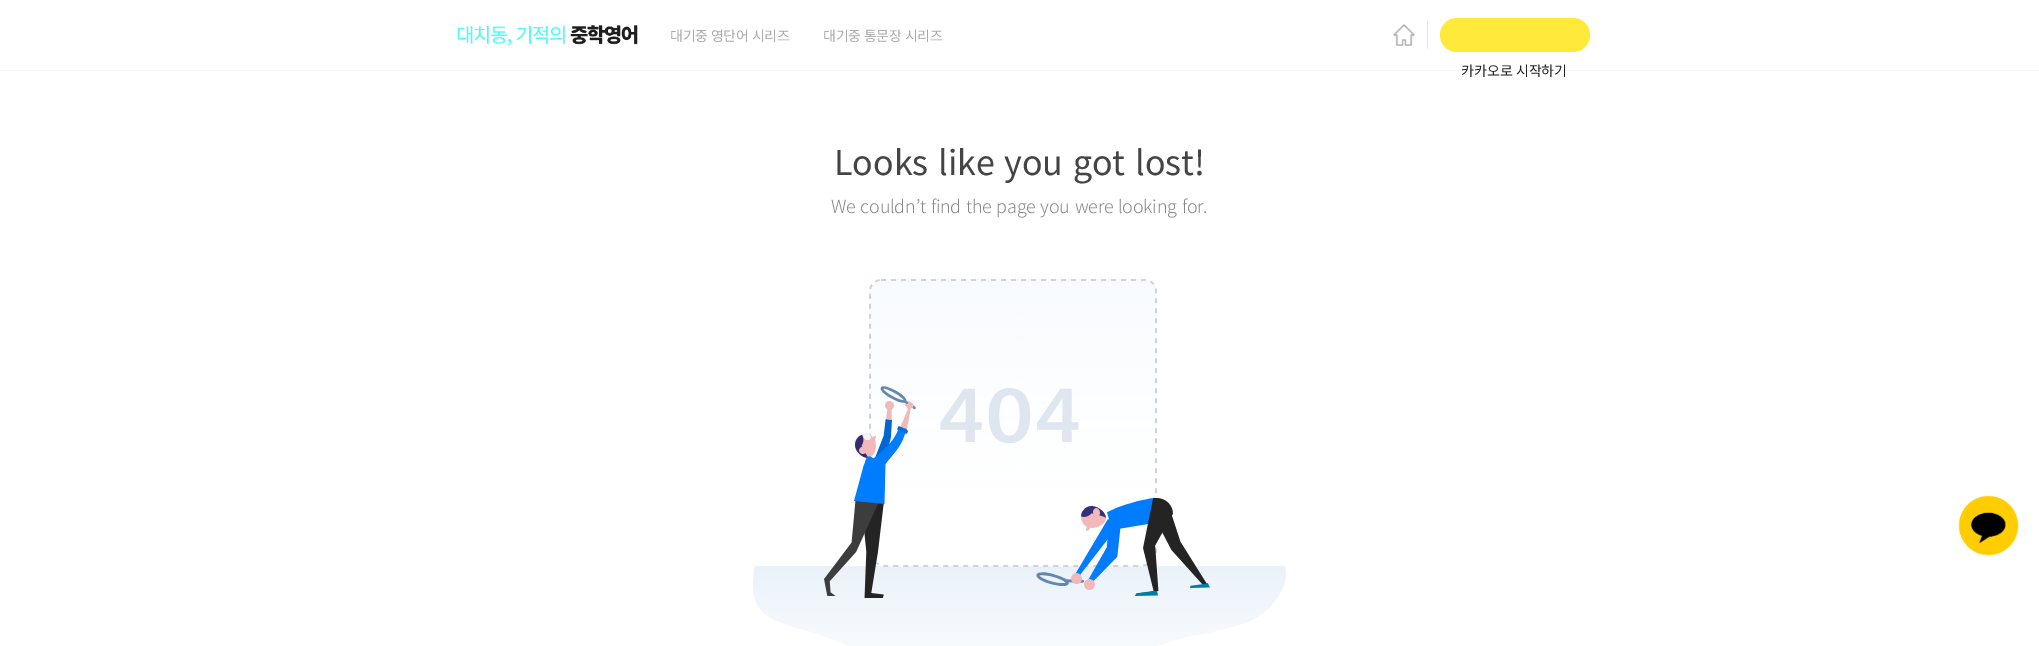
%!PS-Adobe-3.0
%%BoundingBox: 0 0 2039 646
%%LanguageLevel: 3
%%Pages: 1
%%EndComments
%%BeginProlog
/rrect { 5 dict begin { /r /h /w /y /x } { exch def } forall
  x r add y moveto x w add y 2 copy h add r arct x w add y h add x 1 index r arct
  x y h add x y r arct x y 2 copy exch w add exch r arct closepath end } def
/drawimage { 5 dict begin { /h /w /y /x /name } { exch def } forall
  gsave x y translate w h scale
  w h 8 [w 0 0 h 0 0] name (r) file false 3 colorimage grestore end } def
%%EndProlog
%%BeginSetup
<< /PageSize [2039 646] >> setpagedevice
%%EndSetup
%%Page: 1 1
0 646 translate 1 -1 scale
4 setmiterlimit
1 setgray
0 0 2039 646 rectfill
0.965 0.969 0.973 setrgbcolor
0 70 2039 1 rectfill
(images/1.raw) 457 25 181 21 drawimage
(images/2.raw) 1393 24 22 22 drawimage
0.902 setgray
1427 21 1 28 rectfill
1 0.914 0.231 setrgbcolor
1440 18 150 34 17 rrect fill
(images/3.raw) 753 279 533 367 drawimage
(images/4.raw) 1958 495 61 61 drawimage
/NotoSansKR-Regular [14 0 0 -14 0 0] selectfont
0.667 setgray
670 41 moveto -0.25 0 (대기중 영단어 시리즈) ashow
823 41 moveto -0.25 0 (대기중 통문장 시리즈) ashow
0.133 setgray
1461 76 moveto (카카오로 시작하기) show
/NotoSansKR-Regular [34 0 0 -34 0 0] selectfont
0.267 setgray
834 175 moveto 2 0 32 (Looks like you got lost!) widthshow
/NotoSansKR-Light [18 0 0 -18 0 0] selectfont
0.533 setgray
831 213 moveto 1 0 32 -0.25 0 (We couldn’t find the page you were looking for.) awidthshow
showpage
%%EOF
